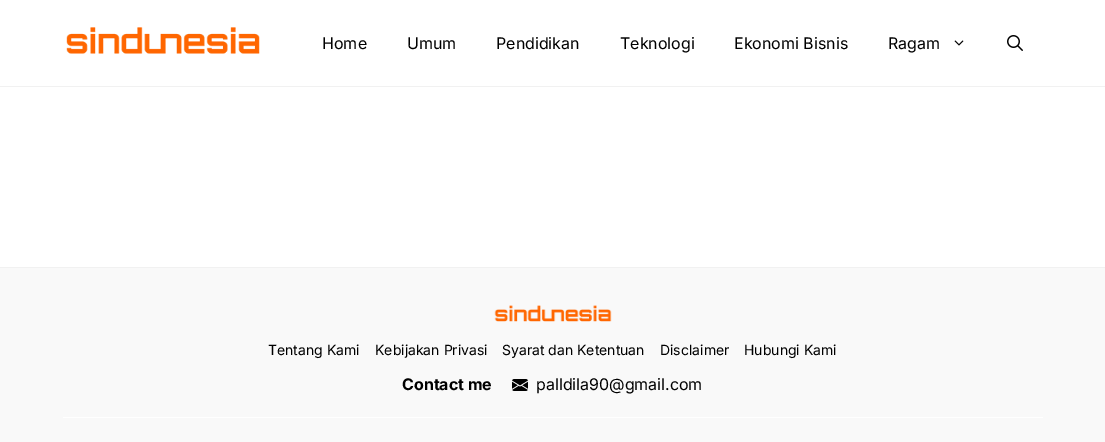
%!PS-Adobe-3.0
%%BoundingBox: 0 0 1105 442
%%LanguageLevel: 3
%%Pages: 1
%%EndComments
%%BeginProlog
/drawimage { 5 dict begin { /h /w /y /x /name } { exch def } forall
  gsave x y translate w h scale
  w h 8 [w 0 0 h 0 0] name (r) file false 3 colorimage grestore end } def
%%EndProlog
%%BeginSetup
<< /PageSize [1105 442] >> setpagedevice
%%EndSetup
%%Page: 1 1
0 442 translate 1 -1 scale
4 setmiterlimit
1 setgray
0 0 1105 442 rectfill
0.945 setgray
0 86 1105 1 rectfill
(images/1.raw) 66 27 194 27 drawimage
(images/2.raw) 954 40 10 6 drawimage
(images/3.raw) 1007 35 16 16 drawimage
0.976 setgray
0 268 1105 174 rectfill
0.945 setgray
0 267 1105 1 rectfill
(images/4.raw) 494 305 118 17 drawimage
(images/5.raw) 512 379 16 12 drawimage
1 setgray
63 417 980 1 rectfill
/Inter-Regular [16 0 0 -16 0 0] selectfont
0 setgray
322 49 moveto (Home) show
407 49 moveto (Umum) show
496 49 moveto (Pendidikan) show
620 49 moveto (Teknologi) show
734 49 moveto (Ekonomi Bisnis) show
888 49 moveto (Ragam) show
/Inter-Regular [14 0 0 -14 0 0] selectfont
268 355 moveto (Tentang Kami) show
375 355 moveto (Kebijakan Privasi) show
502 355 moveto (Syarat dan Ketentuan) show
660 355 moveto (Disclaimer) show
744 355 moveto (Hubungi Kami) show
/Inter-Bold [16 0 0 -16 0 0] selectfont
402 390 moveto (Contact me) show
/Inter-Regular [16 0 0 -16 0 0] selectfont
536 390 moveto (palldila90@gmail.com) show
showpage
%%EOF
